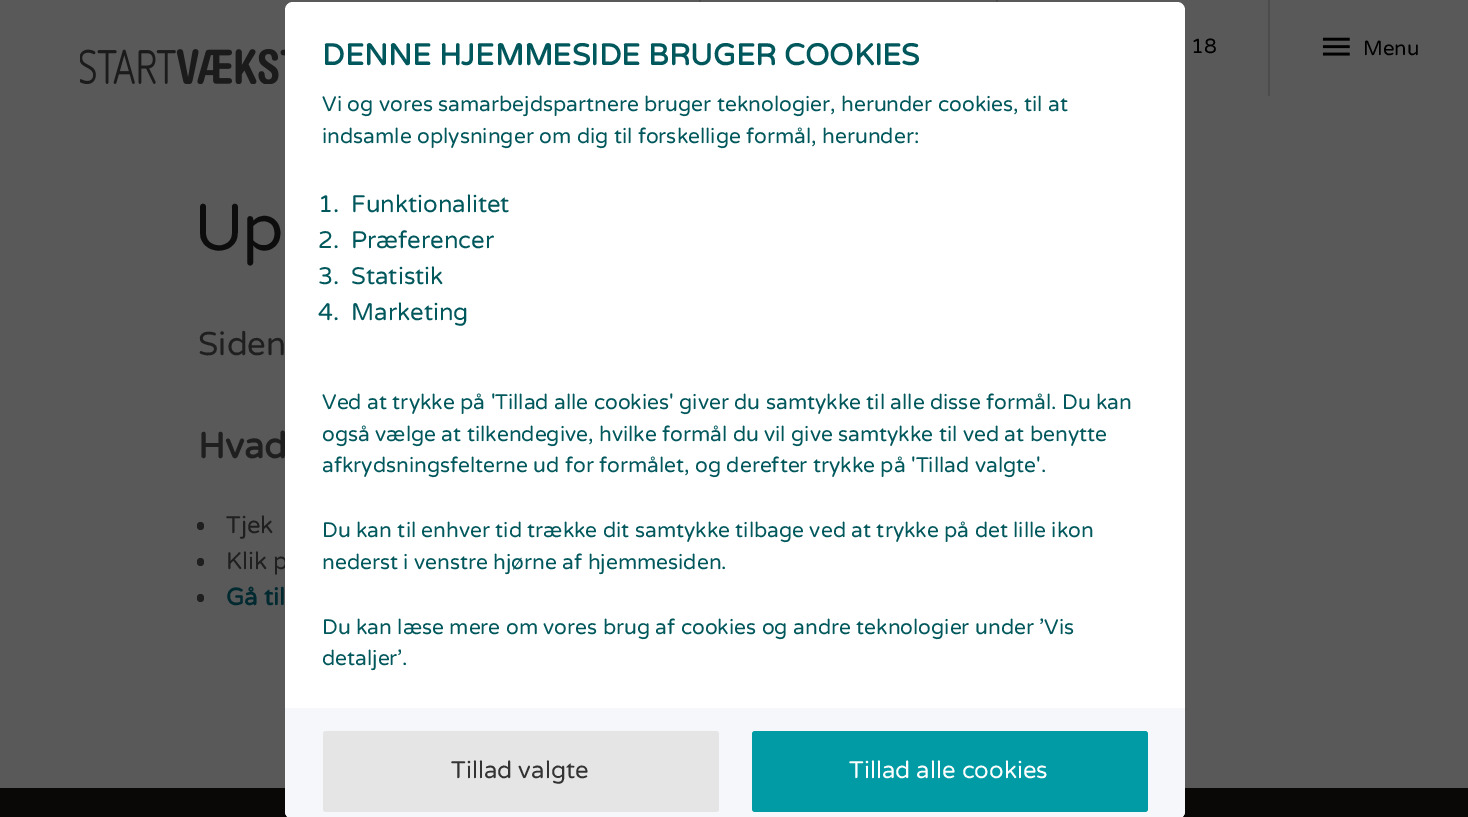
%!PS-Adobe-3.0
%%BoundingBox: 0 0 1468 817
%%LanguageLevel: 3
%%Pages: 1
%%EndComments
%%BeginProlog
/rrect { 5 dict begin { /r /h /w /y /x } { exch def } forall
  x r add y moveto x w add y 2 copy h add r arct x w add y h add x 1 index r arct
  x y h add x y r arct x y 2 copy exch w add exch r arct closepath end } def
/drawimage { 5 dict begin { /h /w /y /x /name } { exch def } forall
  gsave x y translate w h scale
  w h 8 [w 0 0 h 0 0] name (r) file false 3 colorimage grestore end } def
%%EndProlog
%%BeginSetup
<< /PageSize [1468 817] >> setpagedevice
%%EndSetup
%%Page: 1 1
0 817 translate 1 -1 scale
4 setmiterlimit
0.349 setgray
0 0 1468 817 rectfill
0.298 setgray
699 0 2 2 rectfill
(images/1.raw) 80 49 205 35 drawimage
996 0 2 2 rectfill
1268 0 2 96 rectfill
(images/2.raw) 1322 37 28 19 drawimage
0.122 setgray
197 522 7 8 3.5 rrect fill
197 558 7 8 3.5 rrect fill
197 594 7 8 3.5 rrect fill
0.035 0.031 0.027 setrgbcolor
0 788 1468 29 rectfill
/VarelaRound-Regular [20.5 0 0 -20.5 0 0] selectfont
0 setgray
1191 53 moveto (18) show
1363 55 moveto (Menu) show
/VarelaRound-Regular [66 0 0 -66 0 0] selectfont
0.051 setgray
194 250 moveto -2 0 (Up) ashow
/VarelaRound-Regular [33 0 0 -33 0 0] selectfont
0.122 setgray
198 355 moveto (Siden) show
/VarelaRound-Bold [36 0 0 -36 0 0] selectfont
198 458 moveto (Hvad) show
/VarelaRound-Regular [24 0 0 -24 0 0] selectfont
226 533 moveto (Tjek) show
226 569 moveto (Klik p) show
/VarelaRound-Bold [24 0 0 -24 0 0] selectfont
0 0.161 0.188 setrgbcolor
226 605 moveto (Gå til) show
1 setgray
285 2 900 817 8 rrect fill
/VarelaRound-Bold [30 0 0 -30 0 0] selectfont
0 0.341 0.361 setrgbcolor
322 65 moveto (DENNE HJEMMESIDE BRUGER COOKIES) show
/VarelaRound-Regular [21 0 0 -21 0 0] selectfont
322 111 moveto (Vi og vores samarbejdspartnere bruger teknologier, herunder cookies, til at) show
322 143 moveto (indsamle oplysninger om dig til forskellige formål, herunder:) show
/VarelaRound-Regular [24 0 0 -24 0 0] selectfont
318 212 moveto (1.) show
351 212 moveto (Funktionalitet) show
318 248 moveto (2.) show
351 248 moveto (Præferencer) show
318 284 moveto (3.) show
351 284 moveto (Statistik) show
318 320 moveto (4.) show
351 320 moveto (Marketing) show
/VarelaRound-Regular [21 0 0 -21 0 0] selectfont
322 409 moveto (Ved at trykke på 'Tillad alle cookies' giver du samtykke til alle disse formål. Du kan) show
322 441 moveto (også vælge at tilkendegive, hvilke formål du vil give samtykke til ved at benytte) show
322 472 moveto (afkrydsningsfelterne ud for formålet, og derefter trykke på 'Tillad valgte'.) show
322 537 moveto (Du kan til enhver tid trække dit samtykke tilbage ved at trykke på det lille ikon) show
322 569 moveto (nederst i venstre hjørne af hjemmesiden.) show
322 634 moveto (Du kan læse mere om vores brug af cookies og andre teknologier under ’Vis) show
322 665 moveto (detaljer’.) show
0.961 0.969 0.98 setrgbcolor
newpath 285 708 moveto 1185 708 lineto 1185 811 lineto 1185 815.5 1181.5 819 1177 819 curveto 293 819 lineto 288.5 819 285 815.5 285 811 curveto closepath fill
0.898 setgray
323 731 396 81 3 rrect fill
/VarelaRound-Regular [24 0 0 -24 0 0] selectfont
0.2 setgray
451 778 moveto (Tillad valgte) show
0 0.608 0.643 setrgbcolor
752 731 396 81 3 rrect fill
1 setgray
849 778 moveto (Tillad alle cookies) show
showpage
%%EOF
